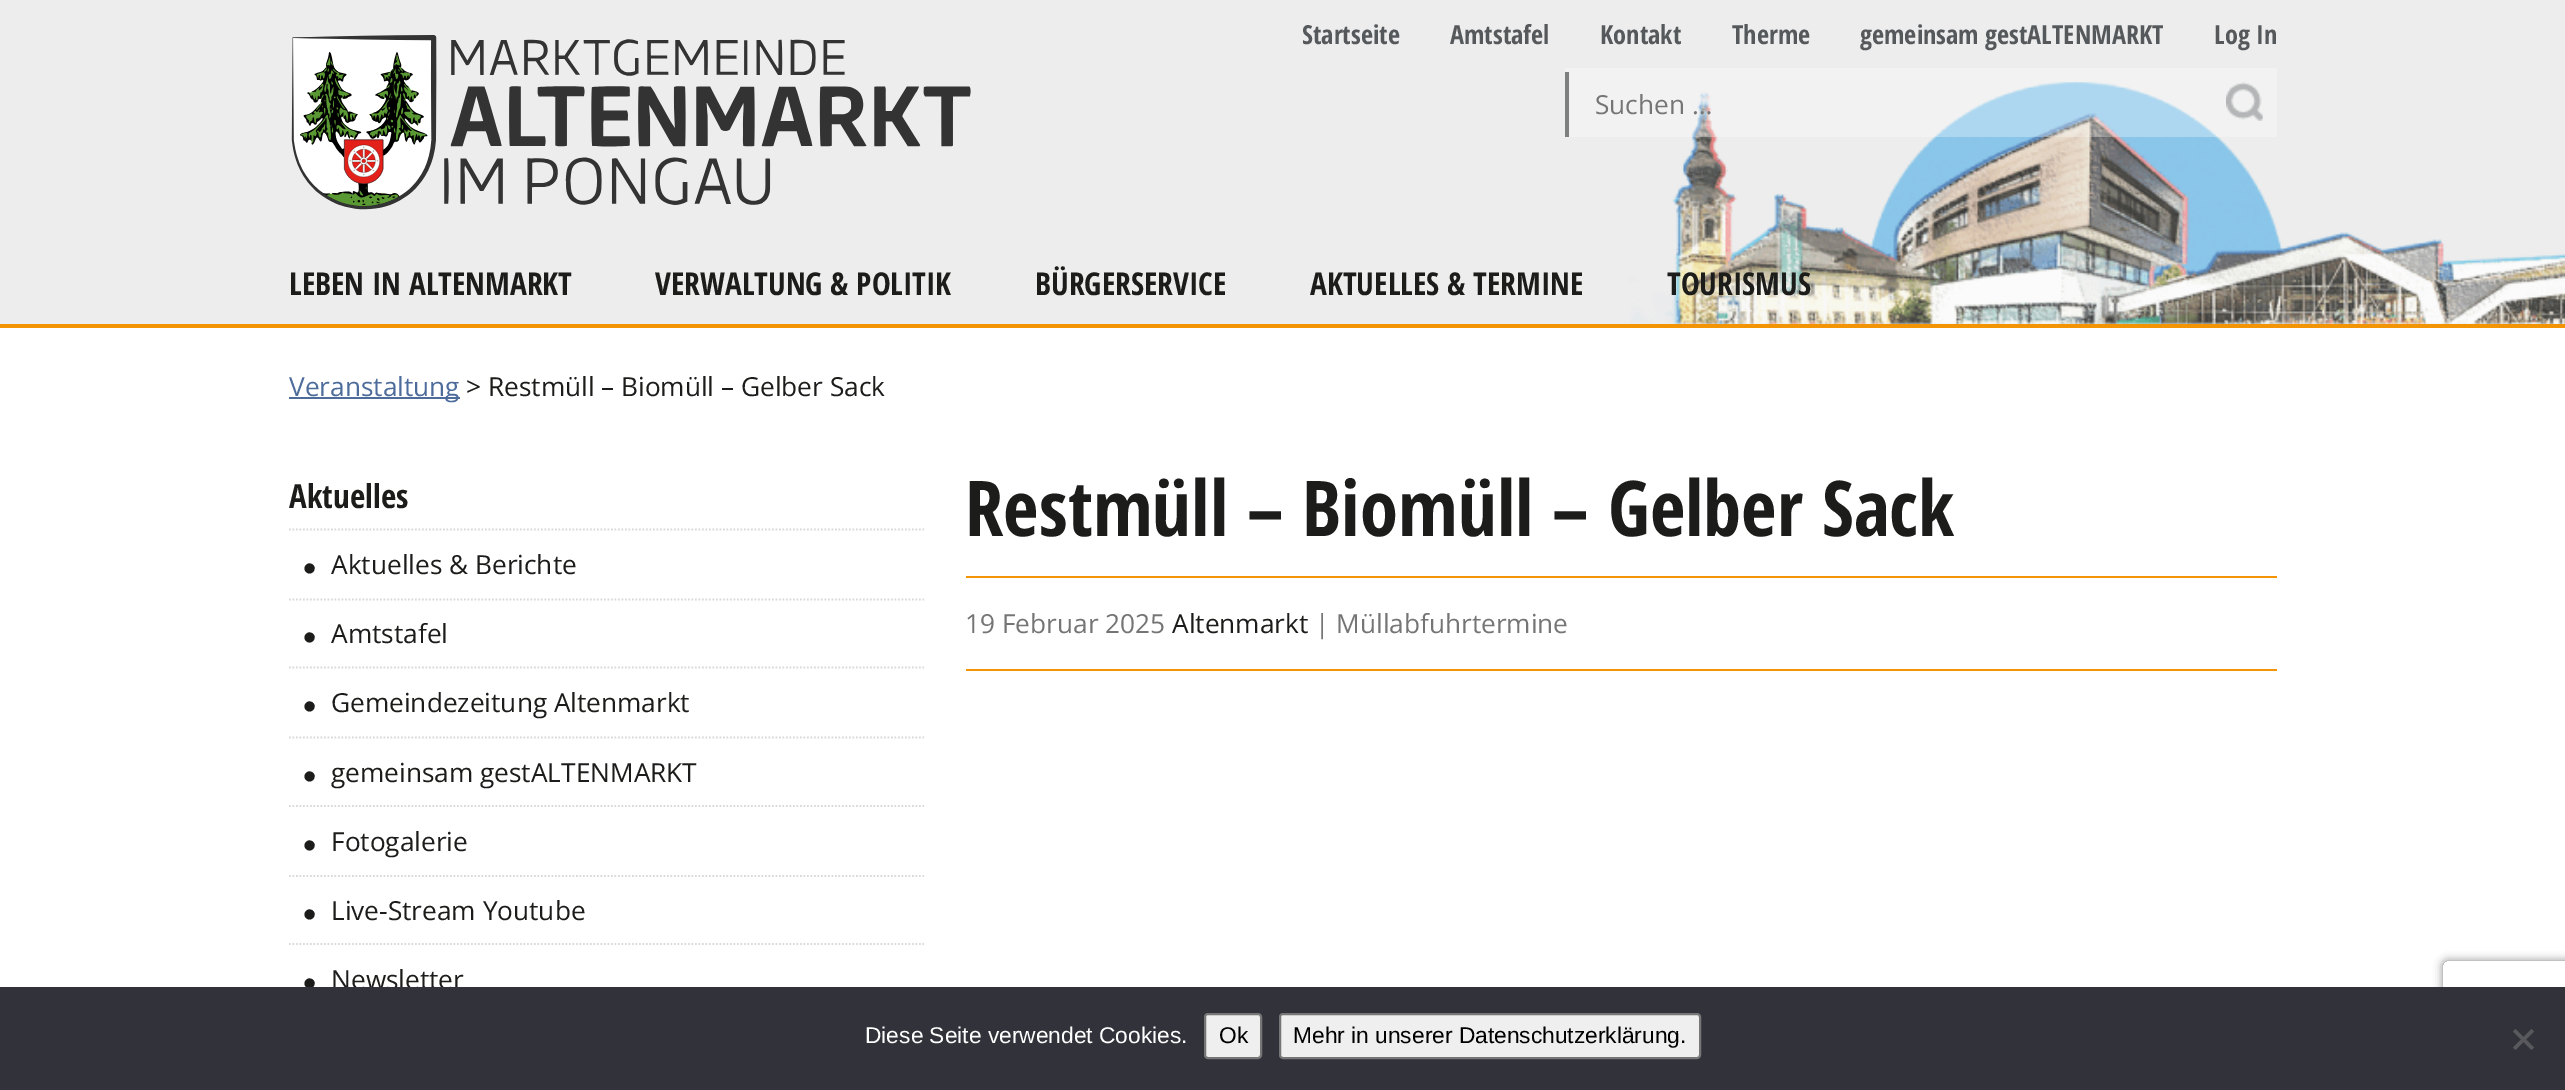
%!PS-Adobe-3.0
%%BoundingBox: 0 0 2565 1090
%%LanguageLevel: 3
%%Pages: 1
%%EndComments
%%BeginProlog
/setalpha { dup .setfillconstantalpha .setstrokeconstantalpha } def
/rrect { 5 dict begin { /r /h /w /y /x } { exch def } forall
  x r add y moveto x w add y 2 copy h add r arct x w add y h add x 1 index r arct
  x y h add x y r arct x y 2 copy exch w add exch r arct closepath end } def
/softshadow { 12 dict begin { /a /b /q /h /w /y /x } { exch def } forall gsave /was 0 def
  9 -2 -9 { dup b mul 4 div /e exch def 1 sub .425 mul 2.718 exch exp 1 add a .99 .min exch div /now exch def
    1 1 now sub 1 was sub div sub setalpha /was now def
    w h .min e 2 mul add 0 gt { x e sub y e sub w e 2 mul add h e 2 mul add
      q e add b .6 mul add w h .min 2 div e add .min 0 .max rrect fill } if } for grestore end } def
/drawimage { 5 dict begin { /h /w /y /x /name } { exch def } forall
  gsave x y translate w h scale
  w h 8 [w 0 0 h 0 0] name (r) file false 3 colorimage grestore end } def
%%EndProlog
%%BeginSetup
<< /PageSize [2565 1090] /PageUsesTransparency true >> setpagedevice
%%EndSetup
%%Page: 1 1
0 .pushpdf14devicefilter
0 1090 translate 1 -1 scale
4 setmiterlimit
1 setgray
0 0 2565 1090 rectfill
0.929 setgray
0 0 2565 324 rectfill
(images/1.raw) 1629 81 936 243 drawimage
0.949 0.58 0.016 setrgbcolor
0 324 2565 4 rectfill
(images/2.raw) 291 35 680 175 drawimage
0.3 setalpha
1 setgray
1565 68 712 69 rectfill
1 setalpha
0.494 0.498 0.498 setrgbcolor
1565 72 4 65 rectfill
(images/3.raw) 2226 82 37 39 drawimage
0.302 0.424 0.608 setrgbcolor
289 397 171 2 rectfill
0.851 setgray
1.8 setlinewidth
[1.75 1.75] 0 setdash
newpath 289 529.5 moveto 924 529.5 lineto stroke
newpath 289 599.5 moveto 924 599.5 lineto stroke
newpath 289 667.5 moveto 924 667.5 lineto stroke
newpath 289 737.5 moveto 924 737.5 lineto stroke
newpath 289 806 moveto 924 806 lineto stroke
newpath 289 876 moveto 924 876 lineto stroke
newpath 289 944 moveto 924 944 lineto stroke
0.949 0.58 0.016 setrgbcolor
966 576 1311 2 rectfill
966 669 1311 2 rectfill
gsave
newpath 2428 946 moveto 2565 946 lineto 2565 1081 lineto 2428 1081 lineto closepath 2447 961 moveto 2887 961 lineto 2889 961 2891 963 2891 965 curveto 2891 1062 lineto 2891 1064 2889 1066 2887 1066 curveto 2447 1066 lineto 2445 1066 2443 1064 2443 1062 curveto 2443 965 lineto 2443 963 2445 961 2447 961 curveto closepath eoclip newpath
0.502 setgray
2443 961 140 105 4 4.5 1 softshadow
grestore
/OpenSansCondensed-Bold [26.25 0 0 -26.25 0 0] selectfont
0.333 0.349 0.361 setrgbcolor
1302 44 moveto (Startseite) show
1450 44 moveto (Amtstafel) show
1600 44 moveto (Kontakt) show
1732 44 moveto (Therme) show
1860 44 moveto (gemeinsam gestALTENMARKT) show
2214 44 moveto (Log In) show
/OpenSans-Regular [26.25 0 0 -26.25 0 0] selectfont
0.459 setgray
1595 114 moveto (Suchen …) show
/OpenSansCondensed-Bold [31.5 0 0 -31.5 0 0] selectfont
0.11 0.11 0.106 setrgbcolor
289 295 moveto (LEBEN IN ALTENMARKT) show
655 295 moveto (VERWALTUNG & POLITIK) show
1035 295 moveto (BÜRGERSERVICE) show
1310 295 moveto (AKTUELLES & TERMINE) show
1667 295 moveto (TOURISMUS) show
/OpenSans-Regular [26.25 0 0 -26.25 0 0] selectfont
0.302 0.424 0.608 setrgbcolor
289 396 moveto (Veranstaltung) show
0.11 0.11 0.106 setrgbcolor
466 396 moveto (> Restmüll – Biomüll – Gelber Sack) show
/OpenSansCondensed-Bold [33 0 0 -33 0 0] selectfont
289 508 moveto (Aktuelles) show
/LiberationSans-Regular [38 0 0 -38 0 0] selectfont
303 581 moveto (•) show
/OpenSans-Regular [26.25 0 0 -26.25 0 0] selectfont
331 574 moveto (Aktuelles & Berichte) show
/LiberationSans-Regular [38 0 0 -38 0 0] selectfont
303 650 moveto (•) show
/OpenSans-Regular [26.25 0 0 -26.25 0 0] selectfont
331 643 moveto (Amtstafel) show
/LiberationSans-Regular [38 0 0 -38 0 0] selectfont
303 719 moveto (•) show
/OpenSans-Regular [26.25 0 0 -26.25 0 0] selectfont
331 712 moveto (Gemeindezeitung Altenmarkt) show
/LiberationSans-Regular [38 0 0 -38 0 0] selectfont
303 789 moveto (•) show
/OpenSans-Regular [26.25 0 0 -26.25 0 0] selectfont
331 782 moveto (gemeinsam gestALTENMARKT) show
/LiberationSans-Regular [38 0 0 -38 0 0] selectfont
303 858 moveto (•) show
/OpenSans-Regular [26.25 0 0 -26.25 0 0] selectfont
331 851 moveto (Fotogalerie) show
/LiberationSans-Regular [38 0 0 -38 0 0] selectfont
303 927 moveto (•) show
/OpenSans-Regular [26.25 0 0 -26.25 0 0] selectfont
331 920 moveto (Live-Stream Youtube) show
/LiberationSans-Regular [38 0 0 -38 0 0] selectfont
303 996 moveto (•) show
/OpenSans-Regular [26.25 0 0 -26.25 0 0] selectfont
331 989 moveto (Newsletter) show
/OpenSansCondensed-Bold [76.9 0 0 -76.9 0 0] selectfont
965 536 moveto (Restmüll – Biomüll – Gelber Sack) show
/OpenSans-Regular [26.25 0 0 -26.25 0 0] selectfont
0.459 setgray
965 633 moveto (19 Februar 2025) show
0.11 0.11 0.106 setrgbcolor
1172 633 moveto (Altenmarkt) show
0.459 setgray
1315 633 moveto (| Müllabfuhrtermine) show
0.196 0.196 0.227 setrgbcolor
0 987 2565 103 rectfill
/LiberationSans-Regular [22.75 0 0 -22.75 0 0] selectfont
1 setgray
865 1043 moveto (Diese Seite verwendet Cookies.) show
0.937 setgray
1205 1014 56 44 3 rrect gsave fill grestore
0.463 setgray
2 setlinewidth
[] 0 setdash
stroke
0 setgray
1219 1043 moveto (Ok) show
0.937 setgray
1280 1014 420 44 3 rrect gsave fill grestore
0.463 setgray
stroke
0 setgray
1293 1043 moveto (Mehr in unserer Datenschutzerklärung.) show
0.349 0.349 0.365 setrgbcolor
newpath 2531.5 1029 moveto 2534 1031.5 lineto 2515.5 1050 lineto 2513 1047.5 lineto closepath fill
newpath 2513 1031.5 moveto 2515.5 1029 lineto 2534 1047.5 lineto 2531.5 1050 lineto closepath fill
.poppdf14devicefilter showpage
%%EOF
